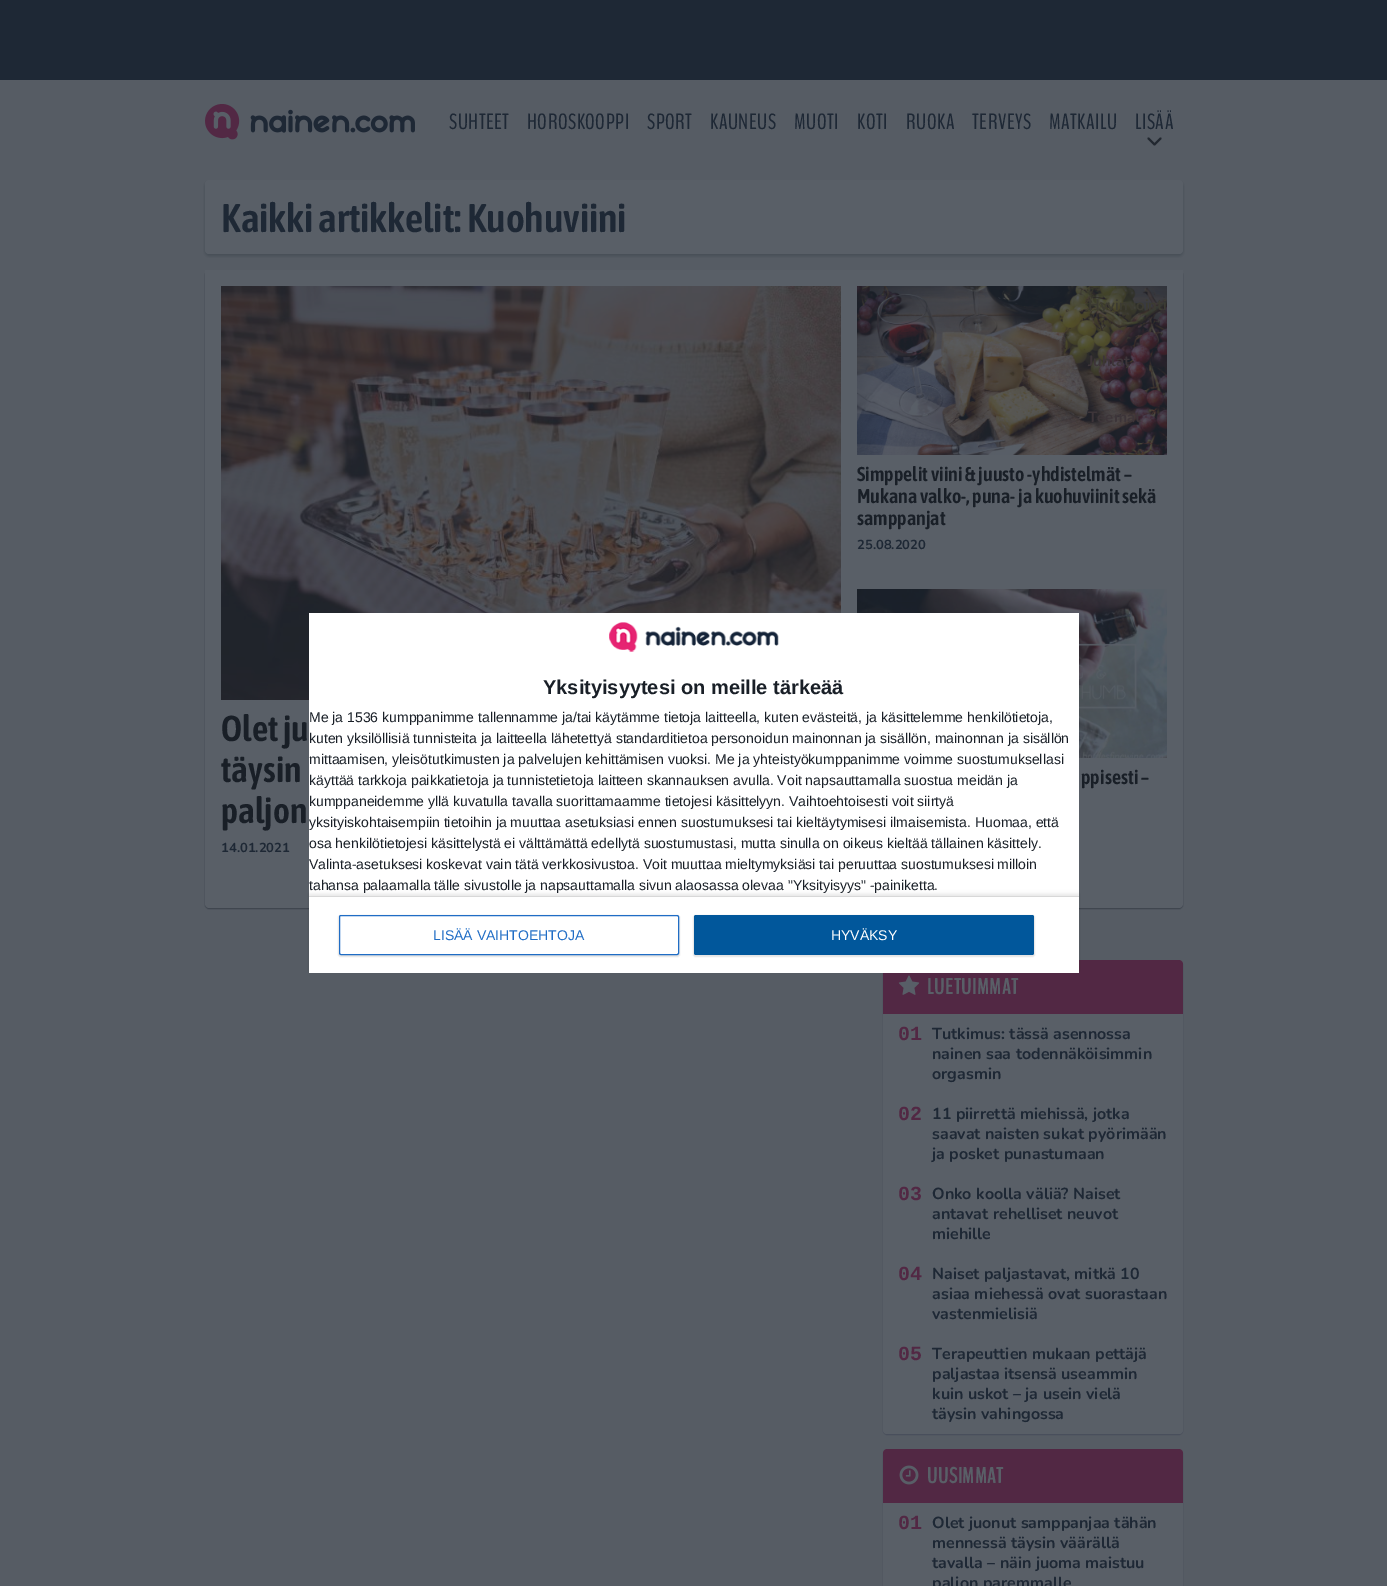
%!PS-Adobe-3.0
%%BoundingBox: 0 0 1387 1586
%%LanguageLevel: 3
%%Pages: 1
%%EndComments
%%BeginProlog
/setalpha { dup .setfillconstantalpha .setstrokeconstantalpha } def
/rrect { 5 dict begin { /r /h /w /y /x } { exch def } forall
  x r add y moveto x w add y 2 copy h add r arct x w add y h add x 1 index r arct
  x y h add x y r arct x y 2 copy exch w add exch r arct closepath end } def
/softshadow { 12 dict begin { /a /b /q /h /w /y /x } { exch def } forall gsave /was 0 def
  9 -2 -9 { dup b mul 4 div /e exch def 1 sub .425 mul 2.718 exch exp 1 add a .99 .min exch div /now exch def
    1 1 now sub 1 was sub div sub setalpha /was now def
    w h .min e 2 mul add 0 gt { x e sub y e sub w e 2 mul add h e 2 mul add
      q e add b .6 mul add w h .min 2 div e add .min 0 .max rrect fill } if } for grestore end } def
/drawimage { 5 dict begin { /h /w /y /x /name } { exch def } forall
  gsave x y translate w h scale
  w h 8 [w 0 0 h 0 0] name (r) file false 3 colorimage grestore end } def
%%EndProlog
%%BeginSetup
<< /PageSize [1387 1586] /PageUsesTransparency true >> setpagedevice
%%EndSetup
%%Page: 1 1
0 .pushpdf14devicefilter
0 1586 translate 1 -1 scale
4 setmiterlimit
0.337 0.361 0.392 setrgbcolor
0 0 1387 1586 rectfill
0.118 0.157 0.208 setrgbcolor
0 0 1387 80 rectfill
(images/1.raw) 205 104 210 36 drawimage
0.129 0.153 0.184 setrgbcolor
2 setlinewidth
1 setlinecap
1 setlinejoin
newpath 1148.5 138.5 moveto 1154.5 144.5 lineto 1160.5 138.5 lineto stroke
0.118 0.157 0.208 setrgbcolor
205 182 978 74 4 1.5 0.3 softshadow
0.349 0.373 0.404 setrgbcolor
205 180 978 74 4 rrect fill
0.129 0.157 0.204 setrgbcolor
205 271 978 638 4 0.5 0.5 softshadow
0.349 0.373 0.404 setrgbcolor
newpath 205 270 moveto 1183 270 lineto 1183 904 lineto 1183 906 1181 908 1179 908 curveto 209 908 lineto 207 908 205 906 205 904 curveto closepath fill
(images/2.raw) 221 286 620 414 drawimage
(images/3.raw) 857 286 310 169 drawimage
(images/4.raw) 857 589 310 169 drawimage
0.133 0.153 0.247 setrgbcolor
883 961 300 474 4 0.5 0.3 softshadow
0.349 0.373 0.404 setrgbcolor
883 960 300 474 4 rrect fill
0.322 0.157 0.267 setrgbcolor
newpath 887 960 moveto 1179 960 lineto 1181 960 1183 962 1183 964 curveto 1183 1014 lineto 883 1014 lineto 883 964 lineto 883 962 885 960 887 960 curveto closepath fill
(images/5.raw) 898 975 22 20 drawimage
0.133 0.153 0.247 setrgbcolor
883 1450 300 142 4 0.5 0.3 softshadow
0.349 0.373 0.404 setrgbcolor
883 1449 300 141 4 rrect fill
0.322 0.157 0.267 setrgbcolor
newpath 887 1449 moveto 1179 1449 lineto 1181 1449 1183 1451 1183 1453 curveto 1183 1503 lineto 883 1503 lineto 883 1453 lineto 883 1451 885 1449 887 1449 curveto closepath fill
(images/6.raw) 899 1465 20 20 drawimage
1 setgray
309 613 770 360 rectfill
(images/7.raw) 609 622 170 30 drawimage
gsave
newpath 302 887 moveto 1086 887 lineto 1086 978 lineto 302 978 lineto closepath 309 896 moveto 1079 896 lineto 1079 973 lineto 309 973 lineto closepath eoclip newpath
0 setgray
309 894 770 77 0 2 0.1 softshadow
grestore
0.847 setgray
309 896 770 1 rectfill
0 setgray
338 915 342 42 3 0.5 0.1 softshadow
1 setgray
339.5 915.5 339 39 1.5 rrect gsave fill grestore
0.125 0.427 0.773 setrgbcolor
1 setlinewidth
0 setlinecap
0 setlinejoin
stroke
0 setgray
693 915 342 42 3 0.5 0.1 softshadow
0.004 0.341 0.608 setrgbcolor
694 915 340 40 2 rrect fill
/BenchNine-Regular [22 0 0 -22 0 0] selectfont
0.118 0.157 0.208 setrgbcolor
449 129 moveto 0.5 0 (SUHTEET) ashow
527 129 moveto 0.5 0 (HOROSKOOPPI) ashow
647 129 moveto 0.5 0 (SPORT) ashow
710 129 moveto 0.5 0 (KAUNEUS) ashow
794 129 moveto 0.5 0 (MUOTI) ashow
857 129 moveto 0.5 0 (KOTI) ashow
906 129 moveto 0.5 0 (RUOKA) ashow
972 129 moveto 0.5 0 (TERVEYS) ashow
1049 129 moveto 0.5 0 (MATKAILU) ashow
1135 129 moveto 0.5 0 (LISÄÄ) ashow
/Nunito-Bold [15 0 0 -15 0 0] selectfont
0.235 0.231 0.196 setrgbcolor
1088 310 moveto (Hyvinvointi) show
0.239 0.208 0.224 setrgbcolor
1088 366 moveto (Juhlat) show
1088 422 moveto (Teemat) show
/AsapCondensed-SemiBold [40 0 0 -40 0 0] selectfont
0.118 0.157 0.208 setrgbcolor
221 232 moveto (Kaikki artikkelit: Kuohuviini) show
/AsapCondensed-SemiBold [36 0 0 -36 0 0] selectfont
0.098 0.122 0.153 setrgbcolor
221 741 moveto (Olet ju) show
221 782 moveto (täysin) show
221 823 moveto (paljon) show
/Nunito-Bold [13 0 0 -13 0 0] selectfont
0.118 0.157 0.208 setrgbcolor
221 852 moveto (14.01.2021) show
/AsapCondensed-SemiBold [20 0 0 -20 0 0] selectfont
0.098 0.122 0.153 setrgbcolor
857 481 moveto (Simppelit viini & juusto -yhdistelmät –) show
857 503 moveto (Mukana valko-, puna- ja kuohuviinit sekä) show
857 525 moveto (samppanjat) show
/Nunito-Bold [13 0 0 -13 0 0] selectfont
0.118 0.157 0.208 setrgbcolor
857 549 moveto (25.08.2020) show
/AsapCondensed-SemiBold [20 0 0 -20 0 0] selectfont
0.098 0.122 0.153 setrgbcolor
1081 784 moveto (ppisesti –) show
/BenchNine-Bold [22 0 0 -22 0 0] selectfont
0.349 0.373 0.404 setrgbcolor
927 994 moveto 0.75 0 (LUETUIMMAT) ashow
/LiberationMono-Bold [20 0 0 -20 0 0] selectfont
0.322 0.157 0.267 setrgbcolor
898 1040 moveto (01) show
/Nunito-Bold [16 0 0 -16 0 0] selectfont
0.118 0.157 0.208 setrgbcolor
932 1039 moveto (Tutkimus: tässä asennossa) show
932 1059 moveto (nainen saa todennäköisimmin) show
932 1079 moveto (orgasmin) show
/LiberationMono-Bold [20 0 0 -20 0 0] selectfont
0.322 0.157 0.267 setrgbcolor
898 1120 moveto (02) show
/Nunito-Bold [16 0 0 -16 0 0] selectfont
0.118 0.157 0.208 setrgbcolor
932 1119 moveto (11 piirrettä miehissä, jotka) show
932 1139 moveto (saavat naisten sukat pyörimään) show
932 1159 moveto (ja posket punastumaan) show
/LiberationMono-Bold [20 0 0 -20 0 0] selectfont
0.322 0.157 0.267 setrgbcolor
898 1200 moveto (03) show
/Nunito-Bold [16 0 0 -16 0 0] selectfont
0.118 0.157 0.208 setrgbcolor
932 1199 moveto (Onko koolla väliä? Naiset) show
932 1219 moveto (antavat rehelliset neuvot) show
932 1239 moveto (miehille) show
/LiberationMono-Bold [20 0 0 -20 0 0] selectfont
0.322 0.157 0.267 setrgbcolor
898 1280 moveto (04) show
/Nunito-Bold [16 0 0 -16 0 0] selectfont
0.118 0.157 0.208 setrgbcolor
932 1279 moveto (Naiset paljastavat, mitkä 10) show
932 1299 moveto (asiaa miehessä ovat suorastaan) show
932 1319 moveto (vastenmielisiä) show
/LiberationMono-Bold [20 0 0 -20 0 0] selectfont
0.322 0.157 0.267 setrgbcolor
898 1360 moveto (05) show
/Nunito-Bold [16 0 0 -16 0 0] selectfont
0.118 0.157 0.208 setrgbcolor
932 1359 moveto (Terapeuttien mukaan pettäjä) show
932 1379 moveto (paljastaa itsensä useammin) show
932 1399 moveto (kuin uskot – ja usein vielä) show
932 1419 moveto (täysin vahingossa) show
/BenchNine-Bold [22 0 0 -22 0 0] selectfont
0.349 0.373 0.404 setrgbcolor
927 1483 moveto 0.75 0 (UUSIMMAT) ashow
/LiberationMono-Bold [20 0 0 -20 0 0] selectfont
0.322 0.157 0.267 setrgbcolor
898 1529 moveto (01) show
/Nunito-Bold [16 0 0 -16 0 0] selectfont
0.118 0.157 0.208 setrgbcolor
932 1528 moveto (Olet juonut samppanjaa tähän) show
932 1548 moveto (mennessä täysin väärällä) show
932 1568 moveto (tavalla – näin juoma maistuu) show
932 1588 moveto (paljon paremmalle) show
/LiberationSans-Bold [20 0 0 -20 0 0] selectfont
0.098 0.122 0.153 setrgbcolor
543 694 moveto (Yksityisyytesi on meille tärkeää) show
/LiberationSans-Regular [14 0 0 -14 0 0] selectfont
309 722 moveto (Me ja 1536 kumppanimme tallennamme ja/tai käytämme tietoja laitteella, kuten evästeitä, ja käsittelemme henkilötietoja,) show
309 743 moveto (kuten yksilöllisiä tunnisteita ja laitteella lähetettyä standarditietoa personoidun mainonnan ja sisällön, mainonnan ja sisällön) show
309 764 moveto (mittaamisen, yleisötutkimusten ja palvelujen kehittämisen vuoksi. Me ja yhteistyökumppanimme voimme suostumuksellasi) show
309 785 moveto (käyttää tarkkoja paikkatietoja ja tunnistetietoja laitteen skannauksen avulla. Voit napsauttamalla suostua meidän ja) show
309 806 moveto (kumppaneidemme yllä kuvatulla tavalla suorittamaamme tietojesi käsittelyyn. Vaihtoehtoisesti voit siirtyä) show
309 827 moveto (yksityiskohtaisempiin tietoihin ja muuttaa asetuksiasi ennen suostumuksesi tai kieltäytymisesi ilmaisemista. Huomaa, että) show
309 848 moveto (osa henkilötietojesi käsittelystä ei välttämättä edellytä suostumustasi, mutta sinulla on oikeus kieltää tällainen käsittely.) show
309 869 moveto (Valinta-asetuksesi koskevat vain tätä verkkosivustoa. Voit muuttaa mieltymyksiäsi tai peruuttaa suostumuksesi milloin) show
309 890 moveto (tahansa palaamalla tälle sivustolle ja napsauttamalla sivun alaosassa olevaa "Yksityisyys" -painiketta.) show
0.125 0.427 0.773 setrgbcolor
433 940 moveto (LISÄÄ VAIHTOEHTOJA) show
1 setgray
831 940 moveto (HYVÄKSY) show
.poppdf14devicefilter showpage
%%EOF
